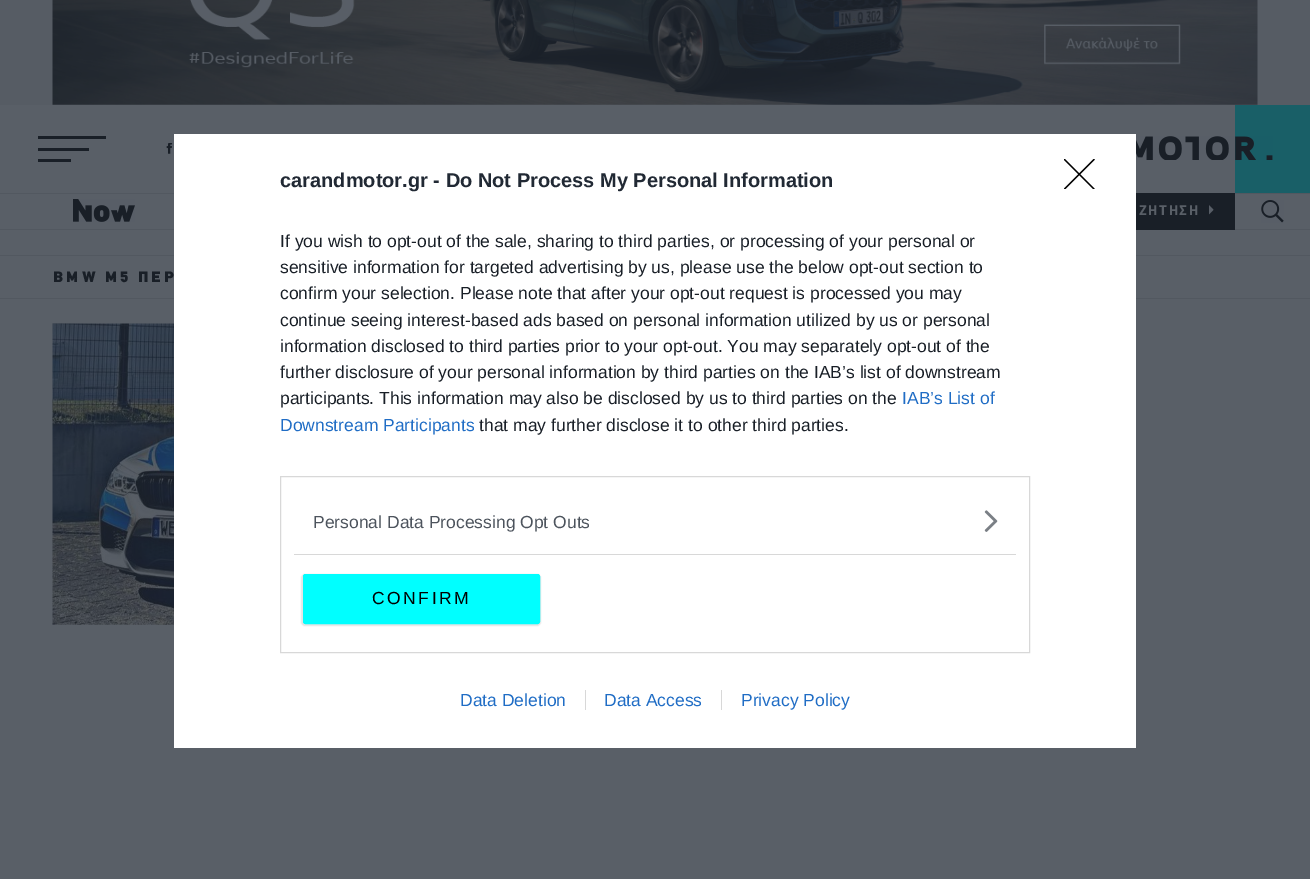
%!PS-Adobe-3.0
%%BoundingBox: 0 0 1310 879
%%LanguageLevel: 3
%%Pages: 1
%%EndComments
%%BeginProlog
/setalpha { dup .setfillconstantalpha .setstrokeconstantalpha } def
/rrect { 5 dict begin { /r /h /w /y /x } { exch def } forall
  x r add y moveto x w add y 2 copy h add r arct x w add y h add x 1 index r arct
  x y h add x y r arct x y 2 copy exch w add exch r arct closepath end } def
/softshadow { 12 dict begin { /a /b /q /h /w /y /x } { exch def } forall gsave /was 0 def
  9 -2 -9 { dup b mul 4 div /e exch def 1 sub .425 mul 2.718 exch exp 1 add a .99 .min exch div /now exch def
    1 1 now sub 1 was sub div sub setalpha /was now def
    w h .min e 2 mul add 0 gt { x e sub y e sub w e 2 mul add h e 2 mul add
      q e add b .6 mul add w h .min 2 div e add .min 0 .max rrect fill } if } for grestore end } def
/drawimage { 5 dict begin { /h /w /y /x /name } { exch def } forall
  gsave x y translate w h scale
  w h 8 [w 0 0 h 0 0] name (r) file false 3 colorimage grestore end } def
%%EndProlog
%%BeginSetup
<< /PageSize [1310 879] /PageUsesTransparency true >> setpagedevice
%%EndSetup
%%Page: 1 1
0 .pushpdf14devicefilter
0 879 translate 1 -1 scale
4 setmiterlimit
0.349 0.373 0.404 setrgbcolor
0 0 1310 879 rectfill
0.322 0.345 0.376 setrgbcolor
0 193 1310 1 rectfill
0 229 1310 1 rectfill
0 255 1310 1 rectfill
0 298 1310 1 rectfill
1 setgray
174 134 962 614 rectfill
0.847 setgray
280.5 476.5 749 176 rectstroke
294 554 722 1 rectfill
(images/1.raw) 984 510 14 22 drawimage
0 setgray
301 574 240 52 4 0.5 0.1 softshadow
0 1 1 setrgbcolor
303.5 574.5 236 49 2 rrect gsave fill grestore
stroke
gsave
1064 159 31 30 rectclip
0 setgray
1.3 setlinewidth
1 setlinecap
1 setlinejoin
newpath 1064.5 159.5 moveto 1094 189 lineto 1094 159.5 moveto 1064.5 189 lineto stroke
grestore
0.847 setgray
585 690 1 20 rectfill
721 690 1 20 rectfill
0.337 0.361 0.392 setrgbcolor
0 0 1310 105 rectfill
(images/2.raw) 52 0 1206 105 drawimage
0.098 0.122 0.153 setrgbcolor
38 136 68 3 rectfill
38 148 51 3 rectfill
38 159 33 3 rectfill
(images/3.raw) 166 143 7 11 drawimage
0.098 0.373 0.404 setrgbcolor
1235 105 75 88 rectfill
(images/4.raw) 1136 136 137 24 drawimage
(images/5.raw) 73 199 62 23 drawimage
0.098 0.122 0.153 setrgbcolor
1136 193 99 37 rectfill
(images/6.raw) 1209 205 5 10 drawimage
(images/7.raw) 1261 200 23 23 drawimage
(images/8.raw) 52 323 122 302 drawimage
/LiberationSans-Bold [20 0 0 -20 0 0] selectfont
0.129 0.161 0.204 setrgbcolor
280 187 moveto (carandmotor.gr - Do Not Process My Personal Information) show
/LiberationSans-Regular [17.5 0 0 -17.5 0 0] selectfont
0.098 0.122 0.153 setrgbcolor
280 247 moveto (If you wish to opt-out of the sale, sharing to third parties, or processing of your personal or) show
280 273 moveto (sensitive information for targeted advertising by us, please use the below opt-out section to) show
280 299 moveto (confirm your selection. Please note that after your opt-out request is processed you may) show
280 326 moveto (continue seeing interest-based ads based on personal information utilized by us or personal) show
280 352 moveto (information disclosed to third parties prior to your opt-out. You may separately opt-out of the) show
280 378 moveto (further disclosure of your personal information by third parties on the IAB’s list of downstream) show
280 404 moveto (participants. This information may also be disclosed by us to third parties on the) show
0.125 0.427 0.773 setrgbcolor
902 404 moveto (IAB’s List of) show
280 431 moveto (Downstream Participants) show
0.098 0.122 0.153 setrgbcolor
479 431 moveto (that may further disclose it to other third parties.) show
0.302 0.329 0.365 setrgbcolor
313 528 moveto (Personal Data Processing Opt Outs) show
0 setgray
372 604 moveto 2.5 0 (CONFIRM) ashow
0.125 0.427 0.773 setrgbcolor
460 706 moveto (Data Deletion) show
604 706 moveto (Data Access) show
741 706 moveto (Privacy Policy) show
/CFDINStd-Bold [13.75 0 0 -13.75 0 0] selectfont
0.349 0.373 0.404 setrgbcolor
1139 215 moveto 1.5 0 (ΖΗΤΗΣΗ) ashow
/CFDINStd-Black [15 0 0 -15 0 0] selectfont
0.098 0.122 0.153 setrgbcolor
53 282 moveto 3 0 (BMW M5 ΠΕΡ) ashow
.poppdf14devicefilter showpage
%%EOF
